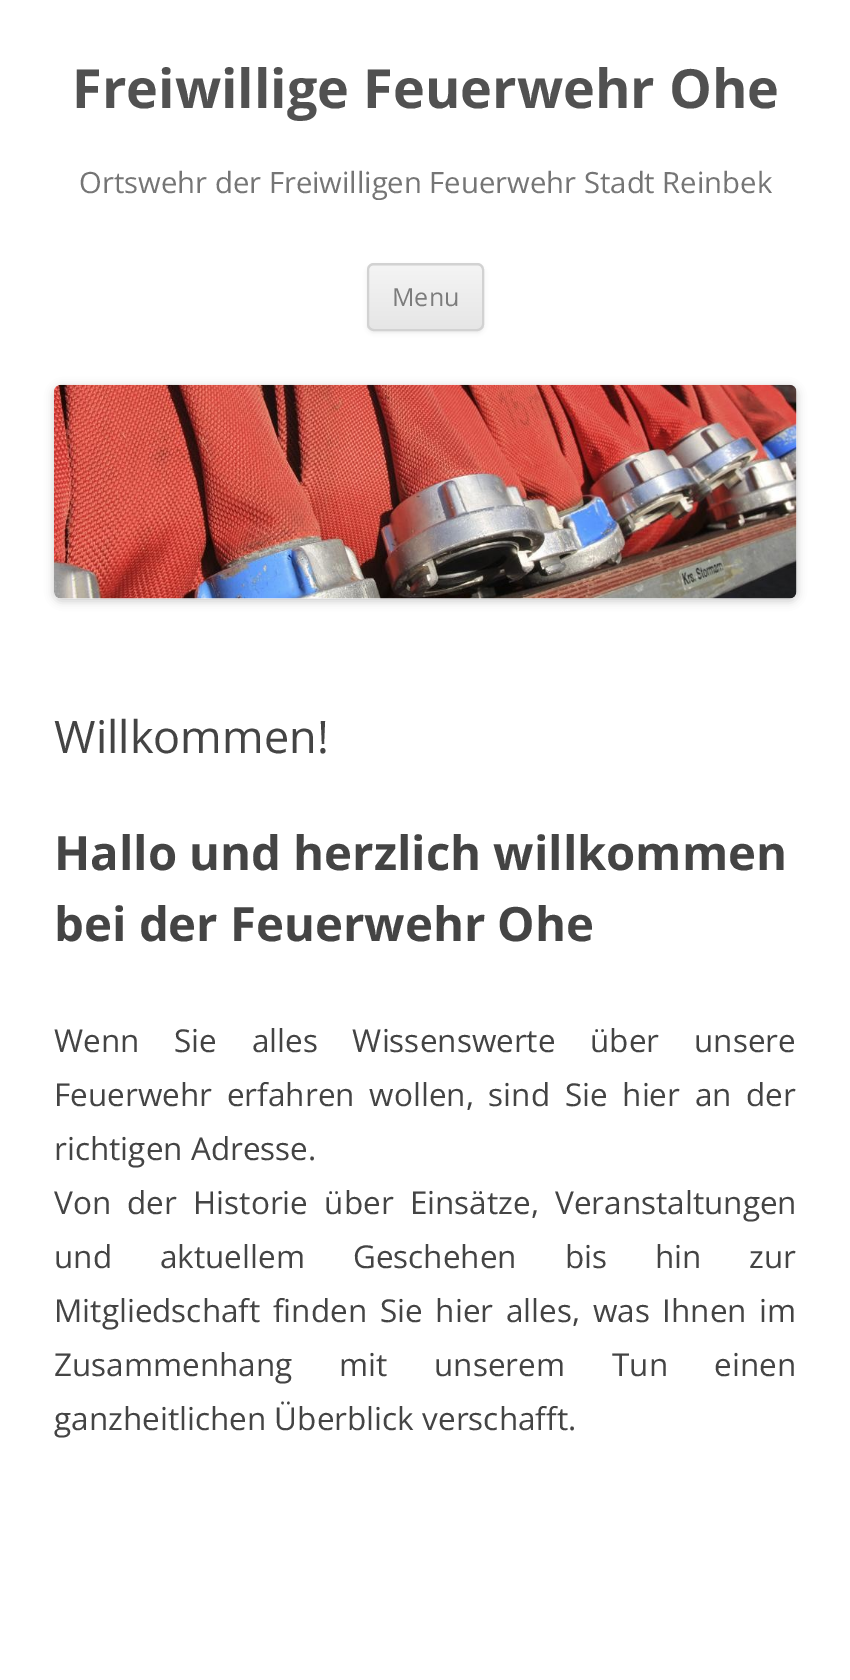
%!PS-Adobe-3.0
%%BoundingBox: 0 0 850 1680
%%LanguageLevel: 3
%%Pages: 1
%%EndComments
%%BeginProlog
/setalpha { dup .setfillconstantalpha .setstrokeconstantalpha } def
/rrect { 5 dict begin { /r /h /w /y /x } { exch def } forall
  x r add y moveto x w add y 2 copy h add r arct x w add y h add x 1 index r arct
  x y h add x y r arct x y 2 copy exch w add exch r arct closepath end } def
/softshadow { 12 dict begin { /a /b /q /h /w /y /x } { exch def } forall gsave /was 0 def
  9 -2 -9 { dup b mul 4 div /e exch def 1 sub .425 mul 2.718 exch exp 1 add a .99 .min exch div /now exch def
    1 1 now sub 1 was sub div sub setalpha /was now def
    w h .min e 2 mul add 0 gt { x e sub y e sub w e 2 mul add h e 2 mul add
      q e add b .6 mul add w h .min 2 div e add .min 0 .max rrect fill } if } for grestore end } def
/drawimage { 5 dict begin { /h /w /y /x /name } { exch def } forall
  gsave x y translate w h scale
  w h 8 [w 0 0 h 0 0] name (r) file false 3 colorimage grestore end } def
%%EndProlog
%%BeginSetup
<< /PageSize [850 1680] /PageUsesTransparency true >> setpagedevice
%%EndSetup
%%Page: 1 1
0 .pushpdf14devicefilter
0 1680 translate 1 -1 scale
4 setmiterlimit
1 setgray
0 0 850 1680 rectfill
0.251 setgray
367 266 117 67 7 2 0.1 softshadow
0.902 setgray
367 263 117 68 7 rrect fill
gsave
367 263 117 68 7 rrect clip newpath
gsave newpath 367 266 moveto 484 266 lineto 484 329 lineto 367 329 lineto closepath clip newpath
<< /ShadingType 2 /ColorSpace /DeviceRGB /Coords [425 266 425 329] /Extend [true true] /Function << /FunctionType 2 /Domain [0 1] /C0 [0.957 0.957 0.957] /C1 [0.902 0.902 0.902] /N 1 >> >> shfill grestore
grestore
0.824 setgray
2 setlinewidth
368 264 115 66 6 rrect stroke
0 setgray
54 387 743 214 7 4.5 0.2 softshadow
(images/1.raw) 54 384 743 215 drawimage
/OpenSans-Bold [54 0 0 -54 0 0] selectfont
0.318 setgray
72 108 moveto (Freiwillige Feuerwehr Ohe) show
/OpenSans-Regular [29.25 0 0 -29.25 0 0] selectfont
0.459 setgray
79 193 moveto (Ortswehr der Freiwilligen Feuerwehr Stadt Reinbek) show
/OpenSans-Regular [25 0 0 -25 0 0] selectfont
0.486 setgray
392 306 moveto (Menu) show
/OpenSans-Regular [45 0 0 -45 0 0] selectfont
0.267 setgray
54 753 moveto (Willkommen!) show
/OpenSans-Bold [47.25 0 0 -47.25 0 0] selectfont
54 870 moveto (Hallo und herzlich willkommen) show
54 941 moveto (bei der Feuerwehr Ohe) show
/OpenSans-Regular [31.5 0 0 -31.5 0 0] selectfont
54 1052 moveto 26.5 0 32 (Wenn Sie alles Wissenswerte über unsere) widthshow
54 1106 moveto 6.5 0 32 (Feuerwehr erfahren wollen, sind Sie hier an der) widthshow
54 1160 moveto (richtigen Adresse.) show
54 1214 moveto 8 0 32 (Von der Historie über Einsätze, Veranstaltungen) widthshow
54 1268 moveto 39.75 0 32 (und aktuellem Geschehen bis hin zur) widthshow
54 1322 moveto 4.5 0 32 (Mitgliedschaft finden Sie hier alles, was Ihnen im) widthshow
54 1376 moveto 38.5 0 32 (Zusammenhang mit unserem Tun einen) widthshow
54 1430 moveto (ganzheitlichen Überblick verschafft.) show
.poppdf14devicefilter showpage
%%EOF
